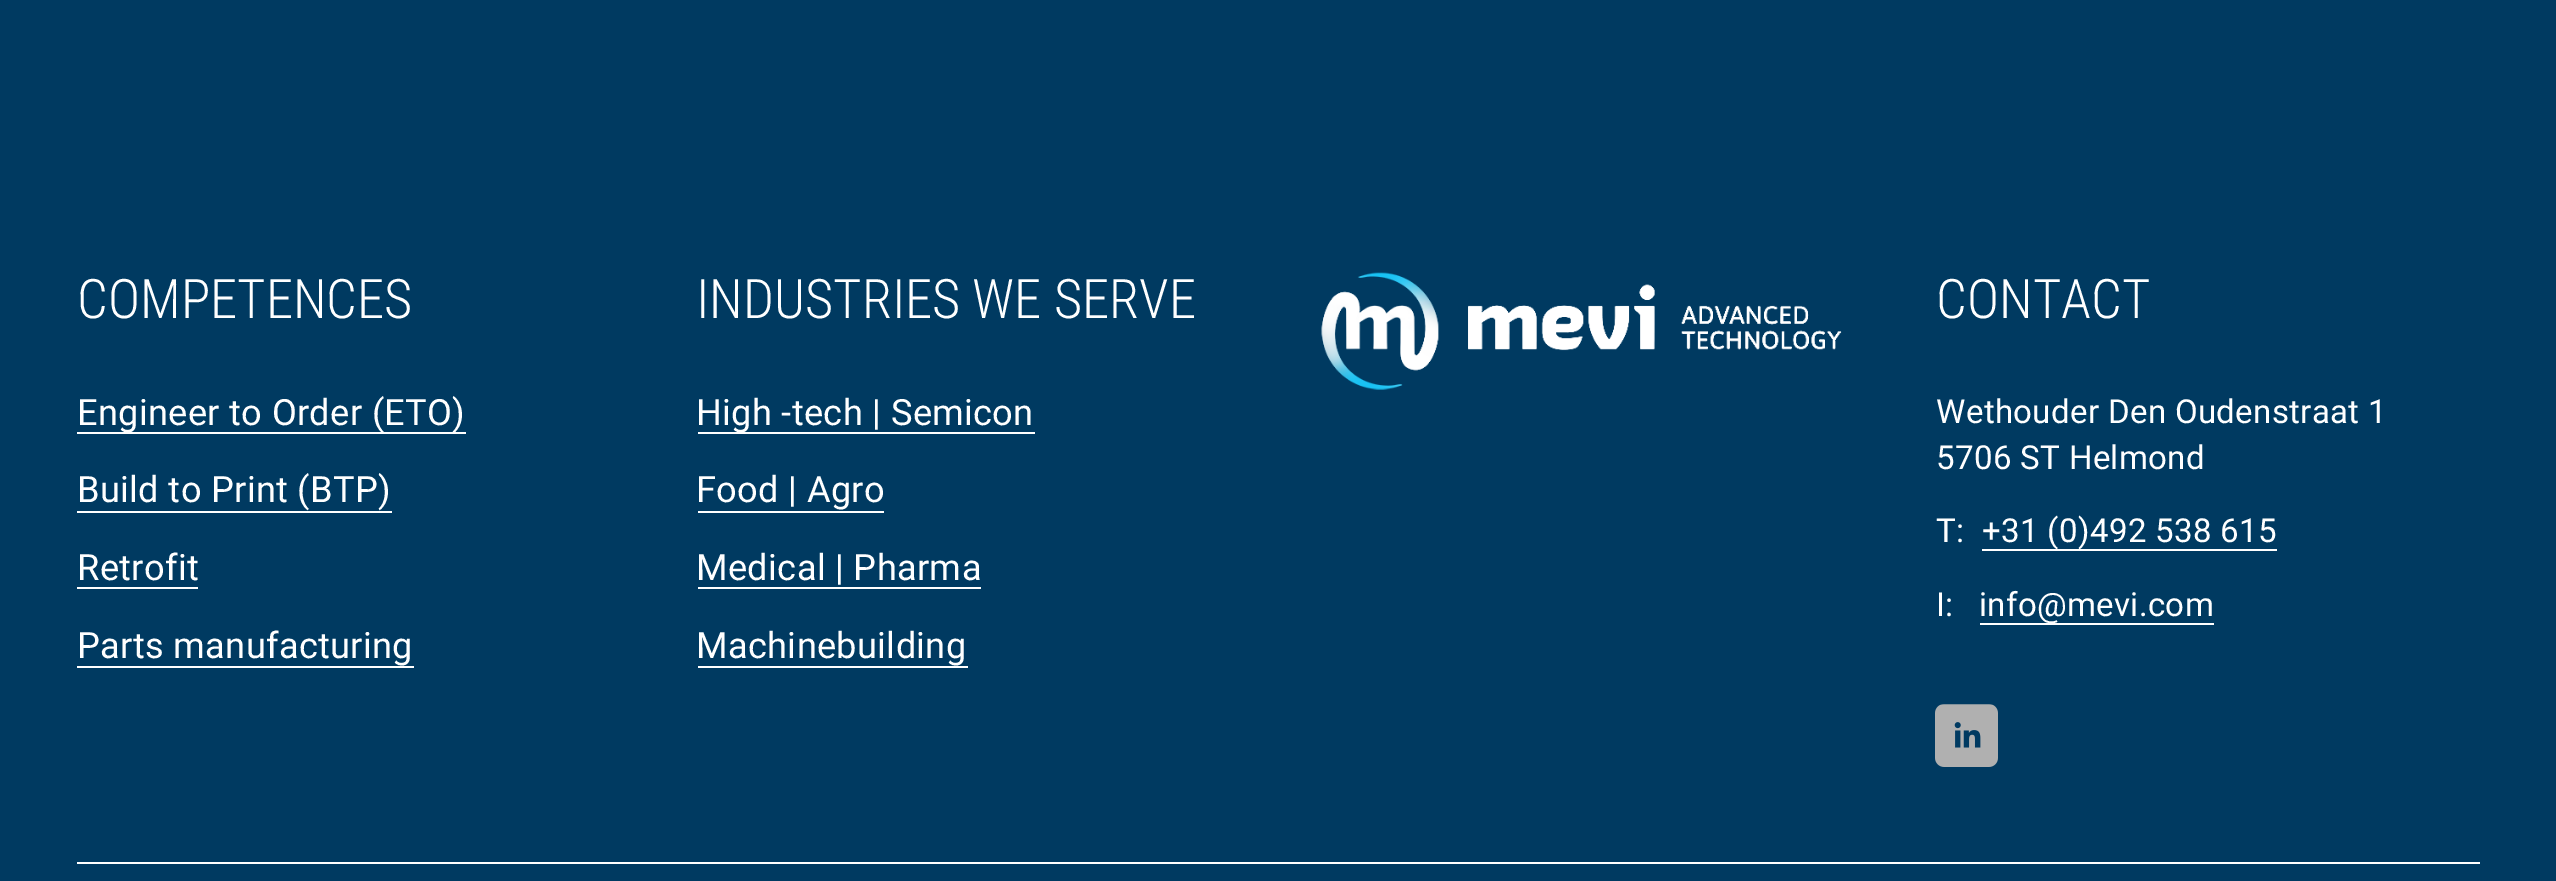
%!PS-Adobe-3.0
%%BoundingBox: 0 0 2556 881
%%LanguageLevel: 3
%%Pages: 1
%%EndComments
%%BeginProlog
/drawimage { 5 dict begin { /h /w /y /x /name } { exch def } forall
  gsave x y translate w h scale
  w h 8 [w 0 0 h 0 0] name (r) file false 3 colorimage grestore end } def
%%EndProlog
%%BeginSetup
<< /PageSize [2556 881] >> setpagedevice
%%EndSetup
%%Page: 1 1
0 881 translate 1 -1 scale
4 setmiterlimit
0 0.227 0.38 setrgbcolor
0 0 2556 881 rectfill
1 setgray
77 432 389 2 rectfill
77 511 315 2 rectfill
77 587 121 2 rectfill
77 666 337 2 rectfill
698 432 337 2 rectfill
698 511 186 2 rectfill
698 587 283 2 rectfill
698 666 270 2 rectfill
(images/1.raw) 1321 272 521 118 drawimage
1982 549 295 2 rectfill
1980 623 234 2 rectfill
(images/2.raw) 1935 704 63 63 drawimage
77 862 2403 2 rectfill
/RobotoCondensed-Light [54.5 0 0 -54.5 0 0] selectfont
77 318 moveto (COMPETENCES) show
/Roboto-Regular [36.25 0 0 -36.25 0 0] selectfont
77 425 moveto 0.3 0 (Engineer to Order \(ETO\)) ashow
77 502 moveto 0.3 0 (Build to Print \(BTP\)) ashow
77 580 moveto 0.3 0 (Retrofit) ashow
77 658 moveto 0.3 0 (Parts manufacturing) ashow
/RobotoCondensed-Light [54.5 0 0 -54.5 0 0] selectfont
696 318 moveto (INDUSTRIES WE SERVE) show
/Roboto-Regular [36.25 0 0 -36.25 0 0] selectfont
696 425 moveto 0.3 0 (High -tech | Semicon) ashow
696 502 moveto 0.3 0 (Food | Agro) ashow
696 580 moveto 0.3 0 (Medical | Pharma) ashow
696 658 moveto 0.3 0 (Machinebuilding) ashow
/RobotoCondensed-Light [54.5 0 0 -54.5 0 0] selectfont
1936 318 moveto (CONTACT) show
/Roboto-Regular [33.1 0 0 -33.1 0 0] selectfont
1936 423 moveto 0.3 0 (Wethouder Den Oudenstraat 1) ashow
1936 469 moveto 0.3 0 (5706 ST Helmond) ashow
1936 542 moveto 0.3 0 (T:) ashow
1982 542 moveto 0.3 0 (+31 \(0\)492 538 615) ashow
1936 616 moveto 0.3 0 (I:) ashow
1979 616 moveto 0.3 0 (info@mevi.com) ashow
showpage
%%EOF
